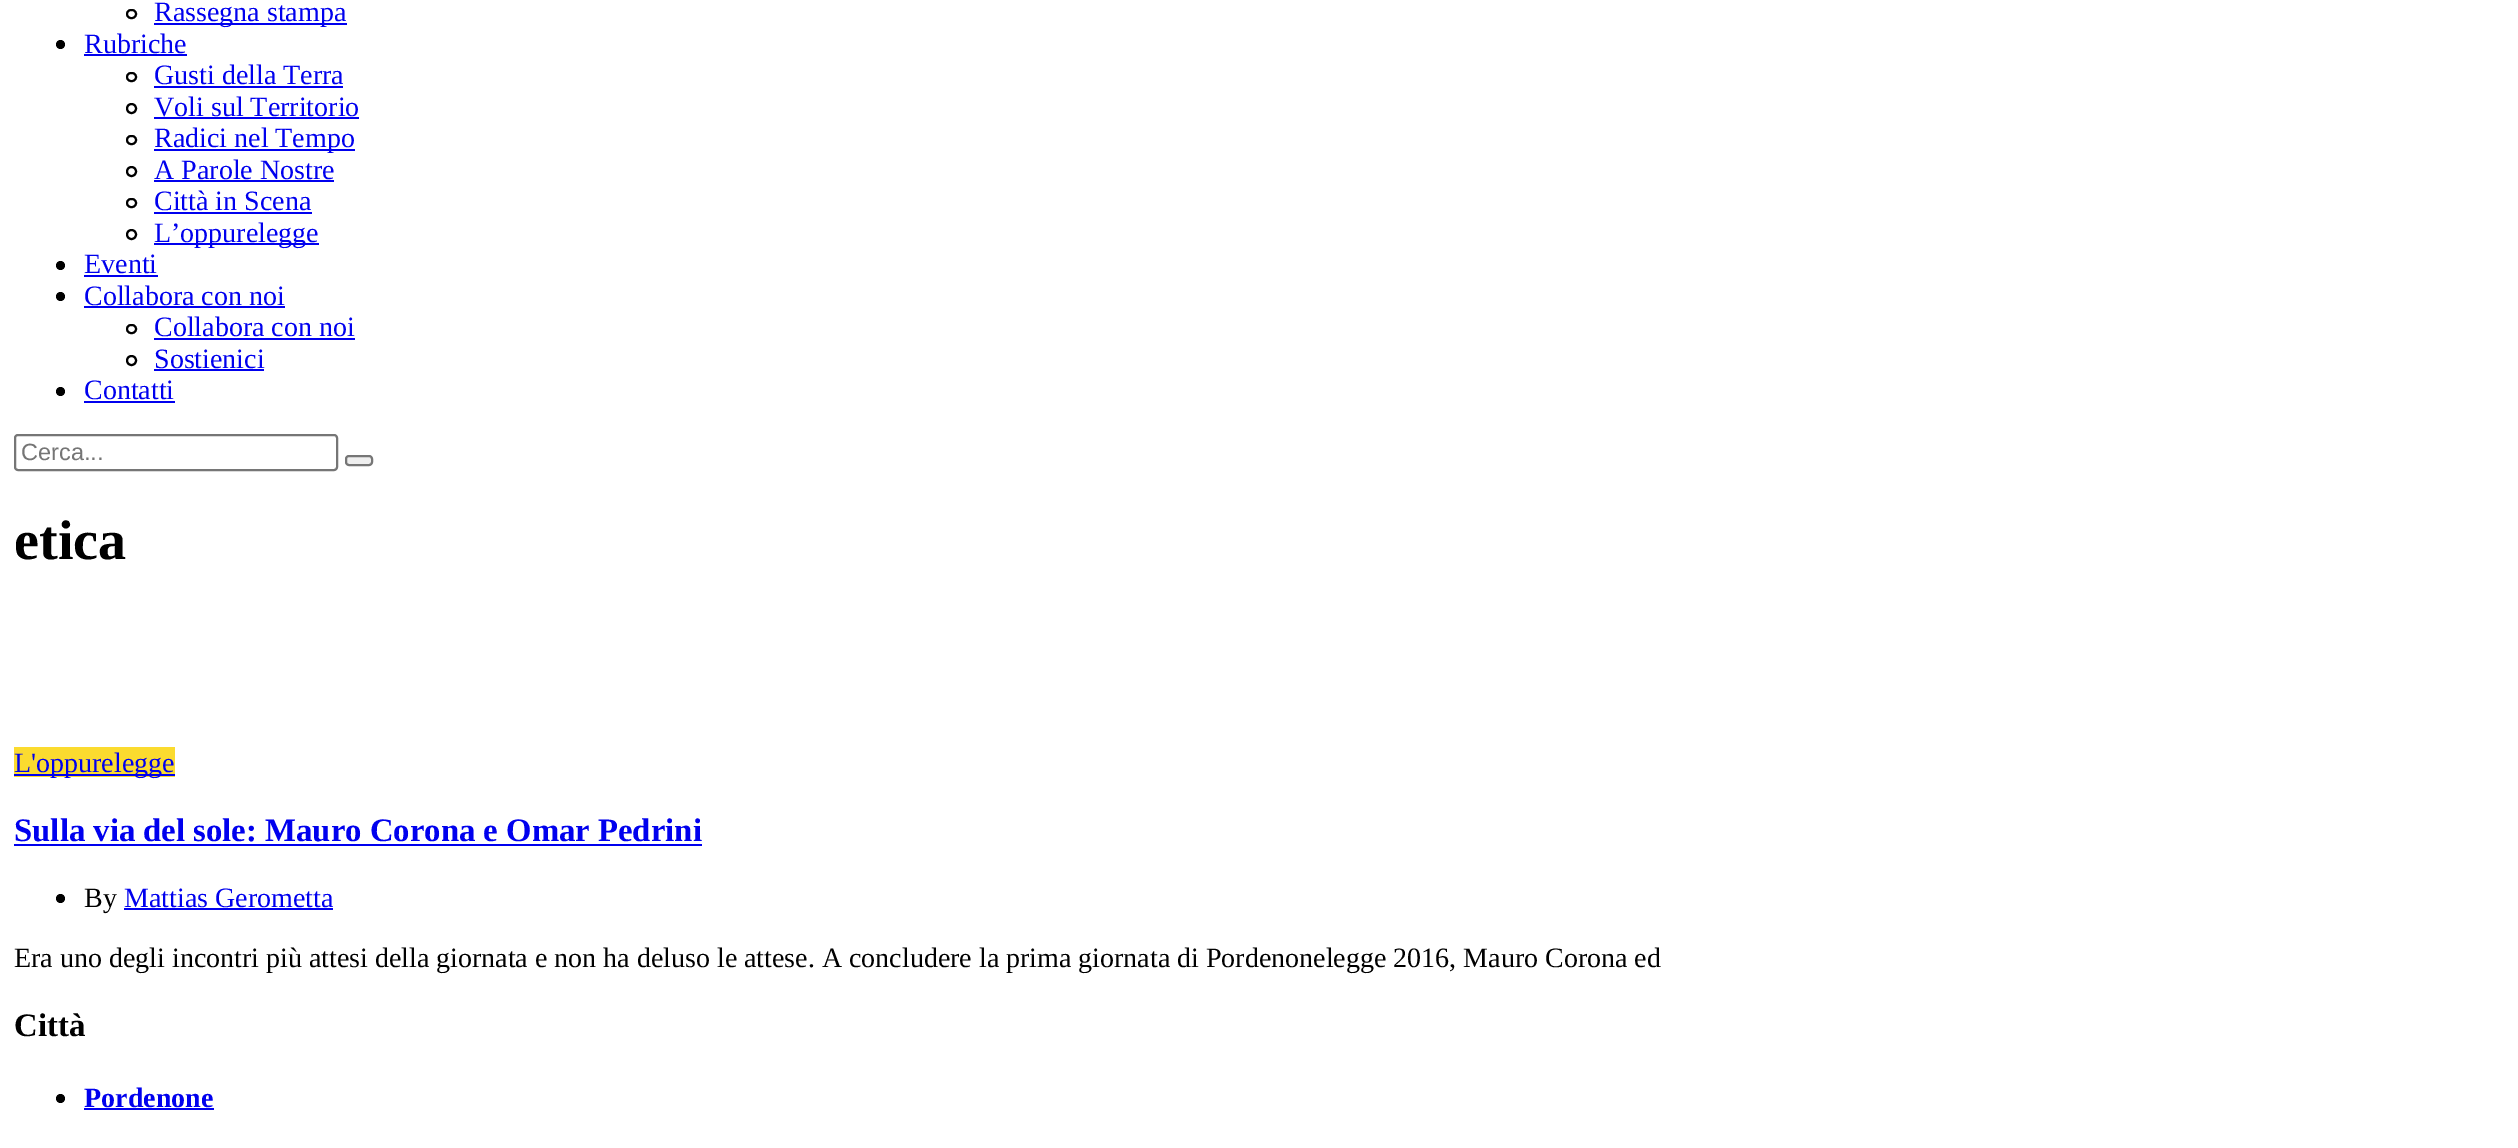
%!PS-Adobe-3.0
%%BoundingBox: 0 0 2518 1148
%%LanguageLevel: 3
%%Pages: 1
%%EndComments
%%BeginProlog
/rrect { 5 dict begin { /r /h /w /y /x } { exch def } forall
  x r add y moveto x w add y 2 copy h add r arct x w add y h add x 1 index r arct
  x y h add x y r arct x y 2 copy exch w add exch r arct closepath end } def
%%EndProlog
%%BeginSetup
<< /PageSize [2518 1148] >> setpagedevice
%%EndSetup
%%Page: 1 1
0 1148 translate 1 -1 scale
4 setmiterlimit
1 setgray
0 0 2518 1148 rectfill
0 setgray
2 setlinewidth
127 10 9 8 4 rrect stroke
0 0 0.933 setrgbcolor
154 23 193 2 rectfill
0 setgray
newpath 60.5 44.5 4.5 0 360 arc closepath fill
0 0 0.933 setrgbcolor
84 54 103 2 rectfill
0 setgray
127 73 9 8 4 rrect stroke
0 0 0.933 setrgbcolor
154 86 189 2 rectfill
0 setgray
newpath 131.5 108.5 4.5 0 360 arc closepath stroke
0 0 0.933 setrgbcolor
154 117 205 2 rectfill
0 setgray
127 136 9 8 4 rrect stroke
0 0 0.933 setrgbcolor
154 149 201 2 rectfill
0 setgray
newpath 131.5 171.5 4.5 0 360 arc closepath stroke
0 0 0.933 setrgbcolor
154 180 180 2 rectfill
0 setgray
127 199 9 8 4 rrect stroke
0 0 0.933 setrgbcolor
154 212 158 2 rectfill
0 setgray
newpath 131.5 234.5 4.5 0 360 arc closepath stroke
0 0 0.933 setrgbcolor
154 243 165 2 rectfill
0 setgray
newpath 60.5 265.5 4.5 0 360 arc closepath fill
0 0 0.933 setrgbcolor
84 275 74 2 rectfill
0 setgray
newpath 60.5 296.5 4.5 0 360 arc closepath fill
0 0 0.933 setrgbcolor
84 306 201 2 rectfill
0 setgray
127 325 9 8 4 rrect stroke
0 0 0.933 setrgbcolor
154 338 201 2 rectfill
0 setgray
newpath 131.5 360.5 4.5 0 360 arc closepath stroke
0 0 0.933 setrgbcolor
154 369 110 2 rectfill
0 setgray
newpath 60.5 391.5 4.5 0 360 arc closepath fill
0 0 0.933 setrgbcolor
84 401 91 2 rectfill
0.463 setgray
15 435 322 35 3 rrect stroke
0.937 setgray
346 456 26 9 3 rrect gsave fill grestore
0.463 setgray
stroke
0.984 0.859 0.184 setrgbcolor
14 747 161 30 rectfill
0 0 0.933 setrgbcolor
14 774 161 2 rectfill
14 844 688 2 rectfill
0 setgray
newpath 60.5 898.5 4.5 0 360 arc closepath fill
0 0 0.933 setrgbcolor
124 908 209 2 rectfill
0 setgray
newpath 60.5 1098.5 4.5 0 360 arc closepath fill
0 0 0.933 setrgbcolor
84 1108 130 2 rectfill
/LiberationSerif-Regular [28 0 0 -28 0 0] selectfont
154 21 moveto (Rassegna stampa) show
84 53 moveto (Rubriche) show
154 84 moveto (Gusti della Terra) show
154 116 moveto (Voli sul Territorio) show
154 147 moveto (Radici nel Tempo) show
154 179 moveto (A Parole Nostre) show
154 210 moveto (Città in Scena) show
154 242 moveto (L’oppurelegge) show
84 273 moveto (Eventi) show
84 305 moveto (Collabora con noi) show
154 336 moveto (Collabora con noi) show
154 368 moveto (Sostienici) show
84 399 moveto (Contatti) show
/LiberationSans-Regular [23.5 0 0 -23.5 0 0] selectfont
0.459 setgray
21 460 moveto (Cerca...) show
/LiberationSerif-Bold [56 0 0 -56 0 0] selectfont
0 setgray
14 559 moveto (etica) show
/LiberationSerif-Regular [28 0 0 -28 0 0] selectfont
0 0 0.933 setrgbcolor
14 772 moveto (L'oppurelegge) show
/LiberationSerif-Bold [32.75 0 0 -32.75 0 0] selectfont
14 841 moveto (Sulla via del sole: Mauro Corona e Omar Pedrini) show
/LiberationSerif-Regular [28 0 0 -28 0 0] selectfont
0 setgray
84 907 moveto (By) show
0 0 0.933 setrgbcolor
124 907 moveto (Mattias Gerometta) show
0 setgray
14 967 moveto (Era uno degli incontri più attesi della giornata e non ha deluso le attese. A concludere la prima giornata di Pordenonelegge 2016, Mauro Corona ed) show
/LiberationSerif-Bold [32.75 0 0 -32.75 0 0] selectfont
14 1036 moveto (Città) show
/LiberationSerif-Bold [28 0 0 -28 0 0] selectfont
0 0 0.933 setrgbcolor
84 1107 moveto (Pordenone) show
showpage
%%EOF
